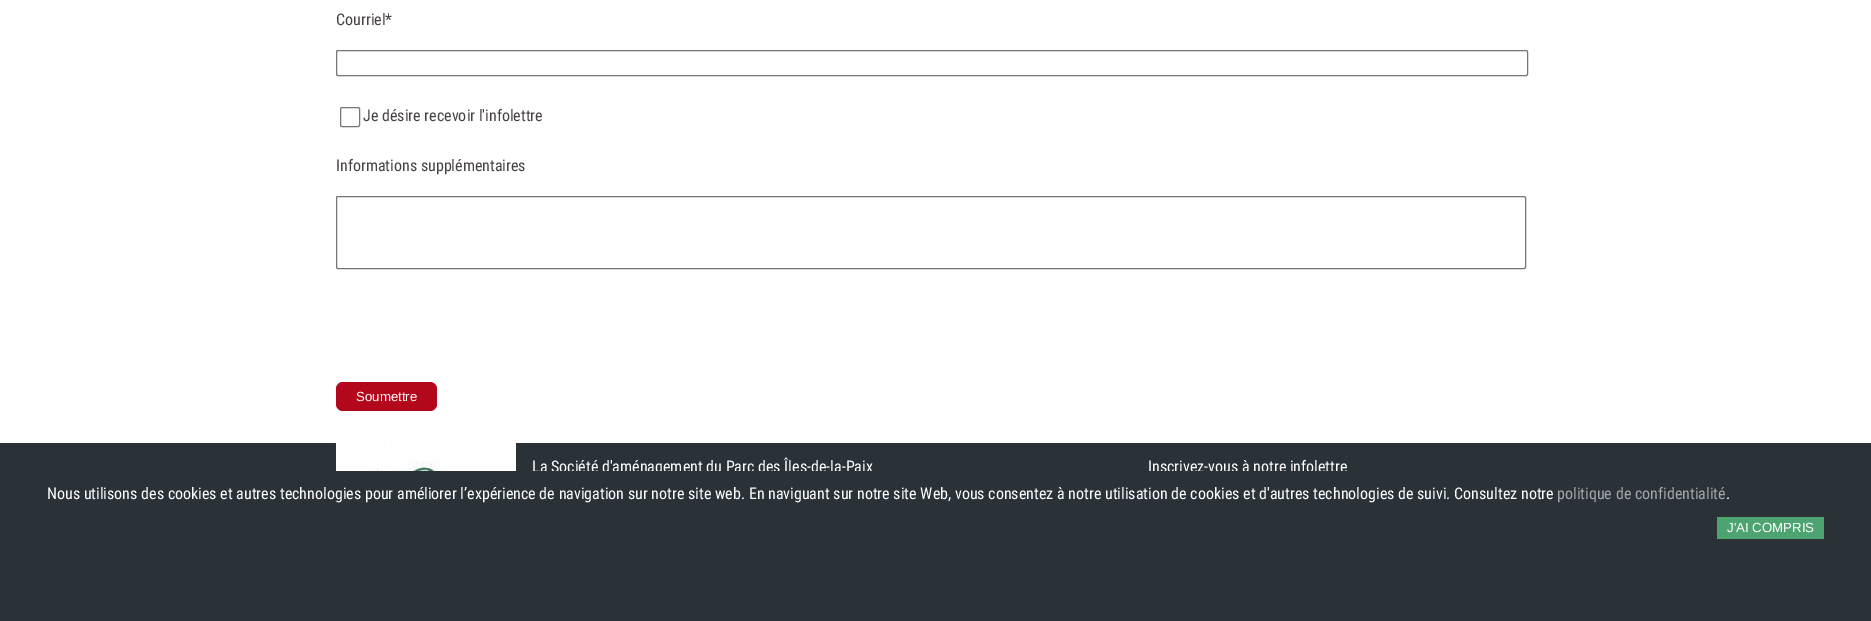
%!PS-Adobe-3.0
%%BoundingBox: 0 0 1871 621
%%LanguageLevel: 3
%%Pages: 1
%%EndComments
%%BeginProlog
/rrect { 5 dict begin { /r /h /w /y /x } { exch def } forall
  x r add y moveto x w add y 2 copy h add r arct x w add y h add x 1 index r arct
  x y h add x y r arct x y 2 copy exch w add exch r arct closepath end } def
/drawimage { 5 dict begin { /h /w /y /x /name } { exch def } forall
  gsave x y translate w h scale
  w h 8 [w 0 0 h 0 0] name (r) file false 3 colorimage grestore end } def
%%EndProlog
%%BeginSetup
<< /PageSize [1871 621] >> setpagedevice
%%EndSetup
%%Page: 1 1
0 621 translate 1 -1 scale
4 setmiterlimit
1 setgray
0 0 1871 621 rectfill
0.463 setgray
336.5 50.5 1191 25 1.5 rrect stroke
340.5 107.5 19 19 1.5 rrect stroke
336.5 196.5 1189 72 1.5 rrect stroke
0.702 0.027 0.106 setrgbcolor
336 382 101 29 7 rrect fill
0.165 0.192 0.216 setrgbcolor
0 443 1871 28 rectfill
(images/1.raw) 336 443 180 28 drawimage
/RobotoCondensed-Regular [16 0 0 -16 0 0] selectfont
0.282 0.263 0.263 setrgbcolor
336 25 moveto (Courriel*) show
363 121 moveto (Je désire recevoir l'infolettre) show
336 171 moveto (Informations supplémentaires) show
/LiberationSans-Regular [13.25 0 0 -13.25 0 0] selectfont
1 setgray
356 401 moveto (Soumettre) show
/RobotoCondensed-Regular [16 0 0 -16 0 0] selectfont
532 472 moveto (La Société d'aménagement du Parc des Îles-de-la-Paix) show
1148 472 moveto (Inscrivez-vous à notre infolettre) show
0.165 0.192 0.216 setrgbcolor
0 471 1871 150 rectfill
1 setgray
47 499 moveto (Nous utilisons des cookies et autres technologies pour améliorer l’expérience de navigation sur notre site web. En naviguant sur notre site Web, vous consentez à notre utilisation de cookies et d'autres technologies de suivi. Consultez notre) show
0.647 0.651 0.659 setrgbcolor
1557 499 moveto (politique de confidentialité) show
1 setgray
1726 499 moveto (.) show
0.302 0.643 0.443 setrgbcolor
1717 517 107 22 rectfill
/LiberationSans-Regular [13.25 0 0 -13.25 0 0] selectfont
1 setgray
1727 532 moveto (J'AI COMPRIS) show
showpage
%%EOF
